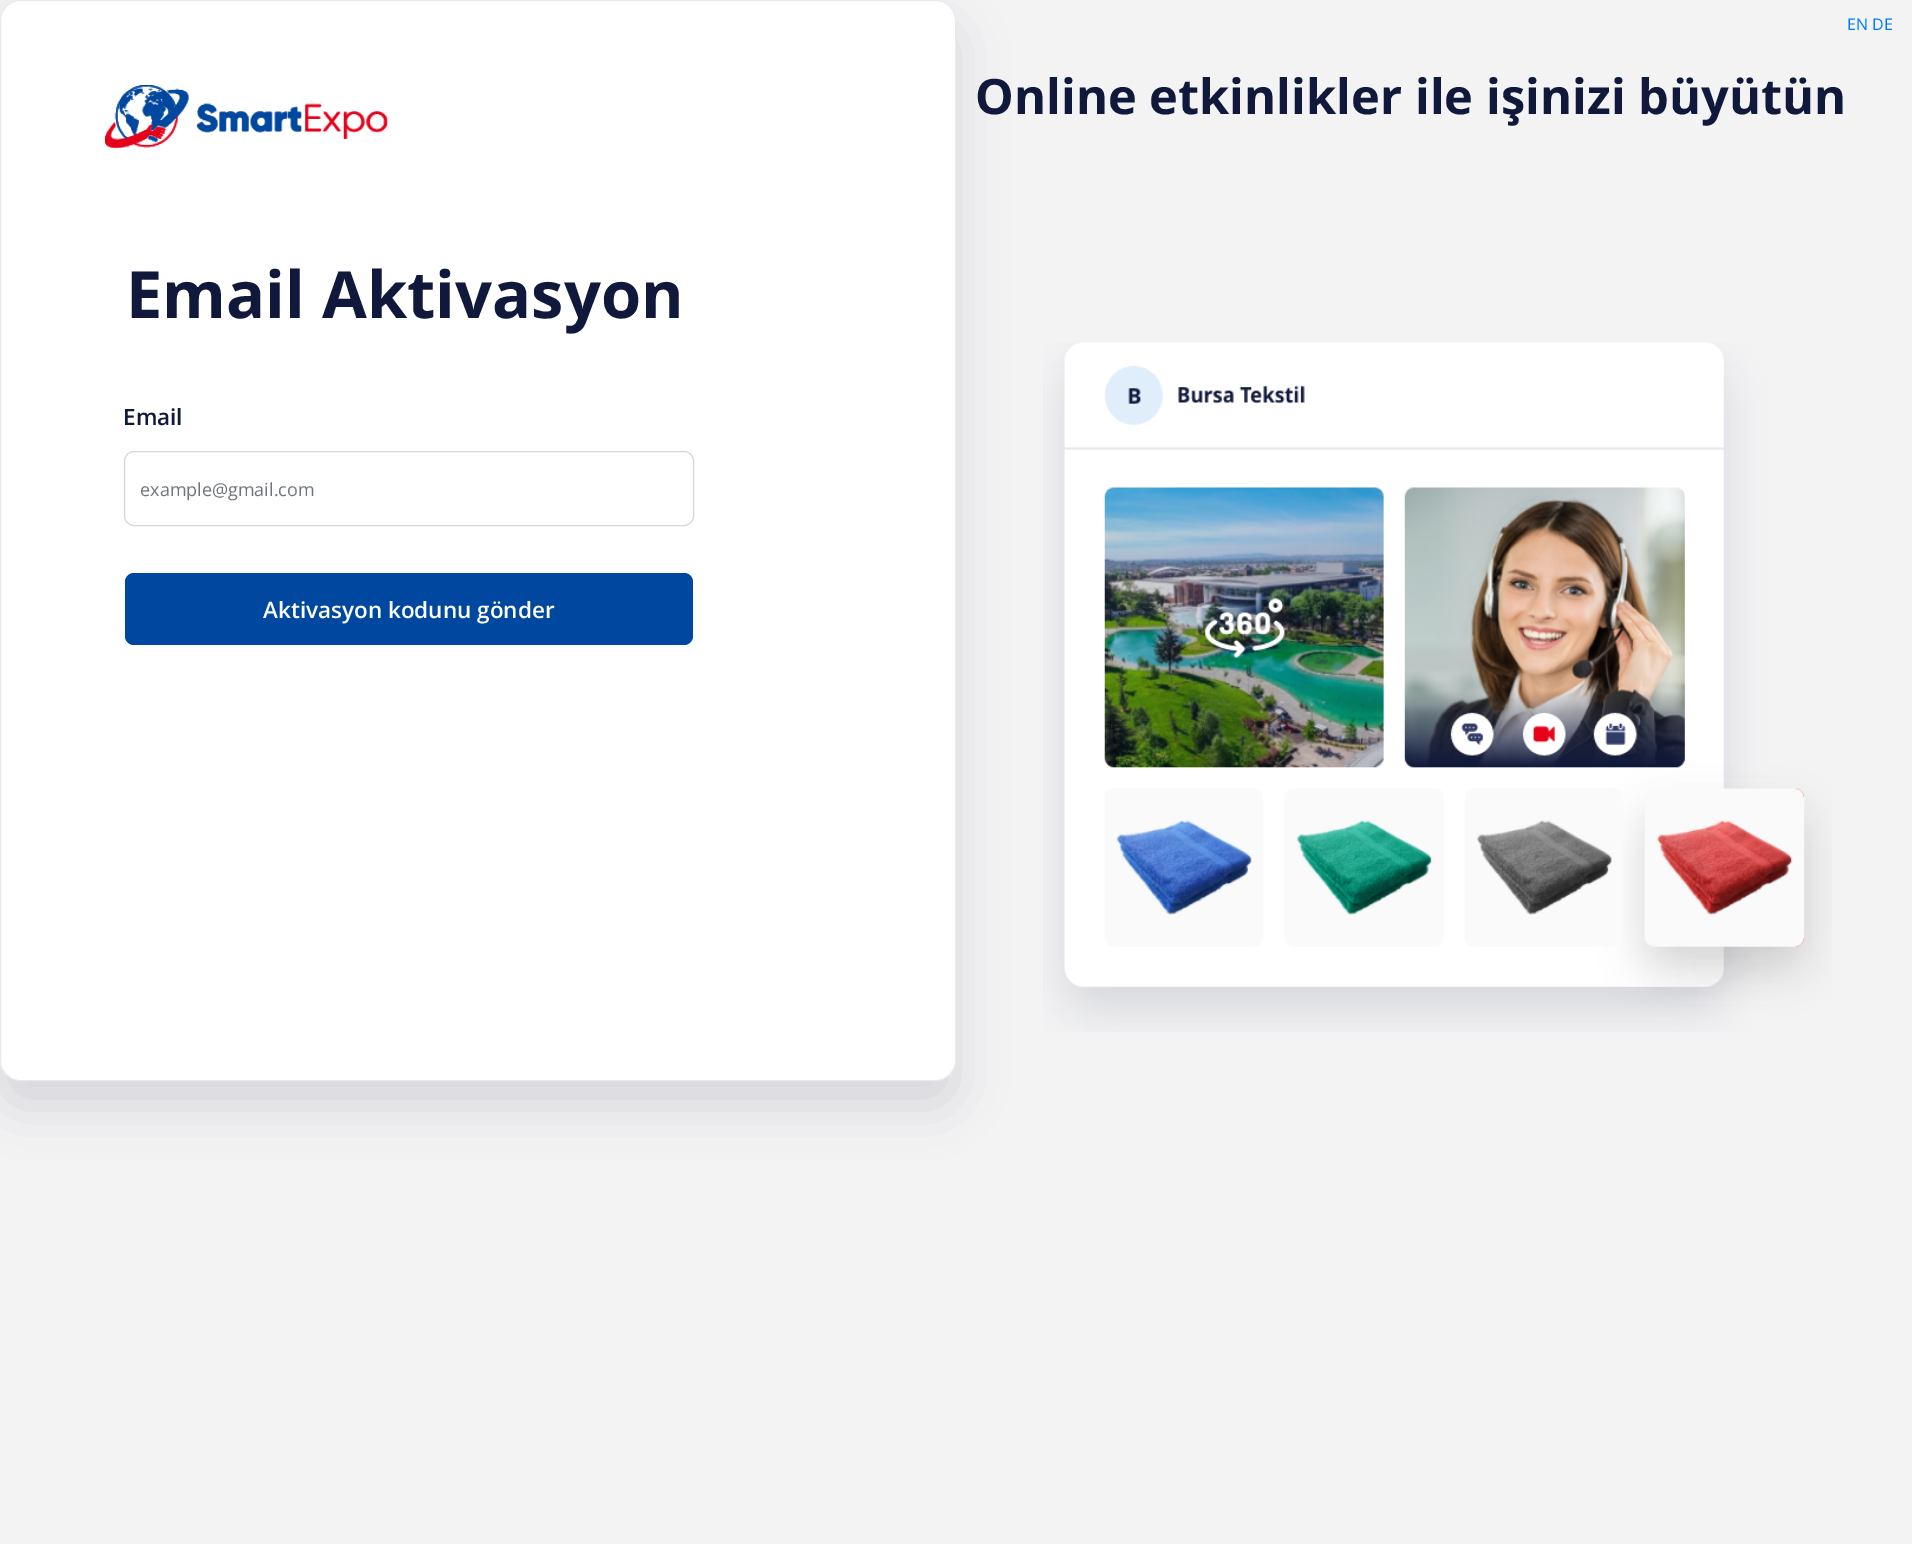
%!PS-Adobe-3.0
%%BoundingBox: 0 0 1912 1544
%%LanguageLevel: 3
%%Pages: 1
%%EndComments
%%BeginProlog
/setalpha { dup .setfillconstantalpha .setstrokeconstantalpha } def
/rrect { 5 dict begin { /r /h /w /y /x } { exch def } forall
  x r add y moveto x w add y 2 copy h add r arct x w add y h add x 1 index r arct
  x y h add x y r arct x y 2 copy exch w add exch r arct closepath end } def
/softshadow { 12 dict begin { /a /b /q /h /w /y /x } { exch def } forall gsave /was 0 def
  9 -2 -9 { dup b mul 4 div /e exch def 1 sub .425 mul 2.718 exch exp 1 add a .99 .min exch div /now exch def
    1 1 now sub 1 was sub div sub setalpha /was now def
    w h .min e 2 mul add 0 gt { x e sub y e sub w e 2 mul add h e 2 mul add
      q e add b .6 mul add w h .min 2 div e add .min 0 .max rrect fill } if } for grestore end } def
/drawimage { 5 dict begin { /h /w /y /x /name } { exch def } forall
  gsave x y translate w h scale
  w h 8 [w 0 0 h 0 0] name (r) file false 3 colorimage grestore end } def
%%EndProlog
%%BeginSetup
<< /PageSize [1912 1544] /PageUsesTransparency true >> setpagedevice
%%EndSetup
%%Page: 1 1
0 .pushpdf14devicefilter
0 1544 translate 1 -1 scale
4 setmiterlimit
0.953 0.953 0.957 setrgbcolor
0 0 1912 1544 rectfill
(images/1.raw) 1043 342 789 690 drawimage
gsave
newpath 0 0 moveto 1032 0 lineto 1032 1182 lineto 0 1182 lineto closepath 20 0 moveto 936 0 lineto 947 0 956 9 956 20 curveto 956 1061 lineto 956 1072 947 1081 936 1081 curveto 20 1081 lineto 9 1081 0 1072 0 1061 curveto 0 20 lineto 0 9 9 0 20 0 curveto closepath eoclip newpath
0.063 0.098 0.231 setrgbcolor
0 25 956 1081 20 25 0.13 softshadow
grestore
1 setgray
0.5 0.5 955 1080 19.5 rrect gsave fill grestore
0.906 0.918 0.925 setrgbcolor
stroke
(images/2.raw) 105 85 283 63 drawimage
(images/3.raw) 105 85 282 63 drawimage
0.839 setgray
124.5 451.5 569 74 9.5 rrect stroke
0 0.282 0.624 setrgbcolor
125 573 568 72 9 rrect fill
/OpenSans-Regular [16 0 0 -16 0 0] selectfont
0 0.482 1 setrgbcolor
1847 30 moveto (EN DE) show
/OpenSans-Bold [48.75 0 0 -48.75 0 0] selectfont
0.063 0.098 0.231 setrgbcolor
975 114 moveto (Online etkinlikler ile işinizi büyütün) show
/OpenSans-Bold [65 0 0 -65 0 0] selectfont
126 318 moveto (Email Aktivasyon) show
/OpenSans-SemiBold [22.5 0 0 -22.5 0 0] selectfont
123 425 moveto (Email) show
/OpenSans-Regular [18 0 0 -18 0 0] selectfont
0.424 0.459 0.49 setrgbcolor
140 496 moveto (example@gmail.com) show
/OpenSans-SemiBold [22.5 0 0 -22.5 0 0] selectfont
1 setgray
263 618 moveto (Aktivasyon kodunu gönder) show
.poppdf14devicefilter showpage
%%EOF
